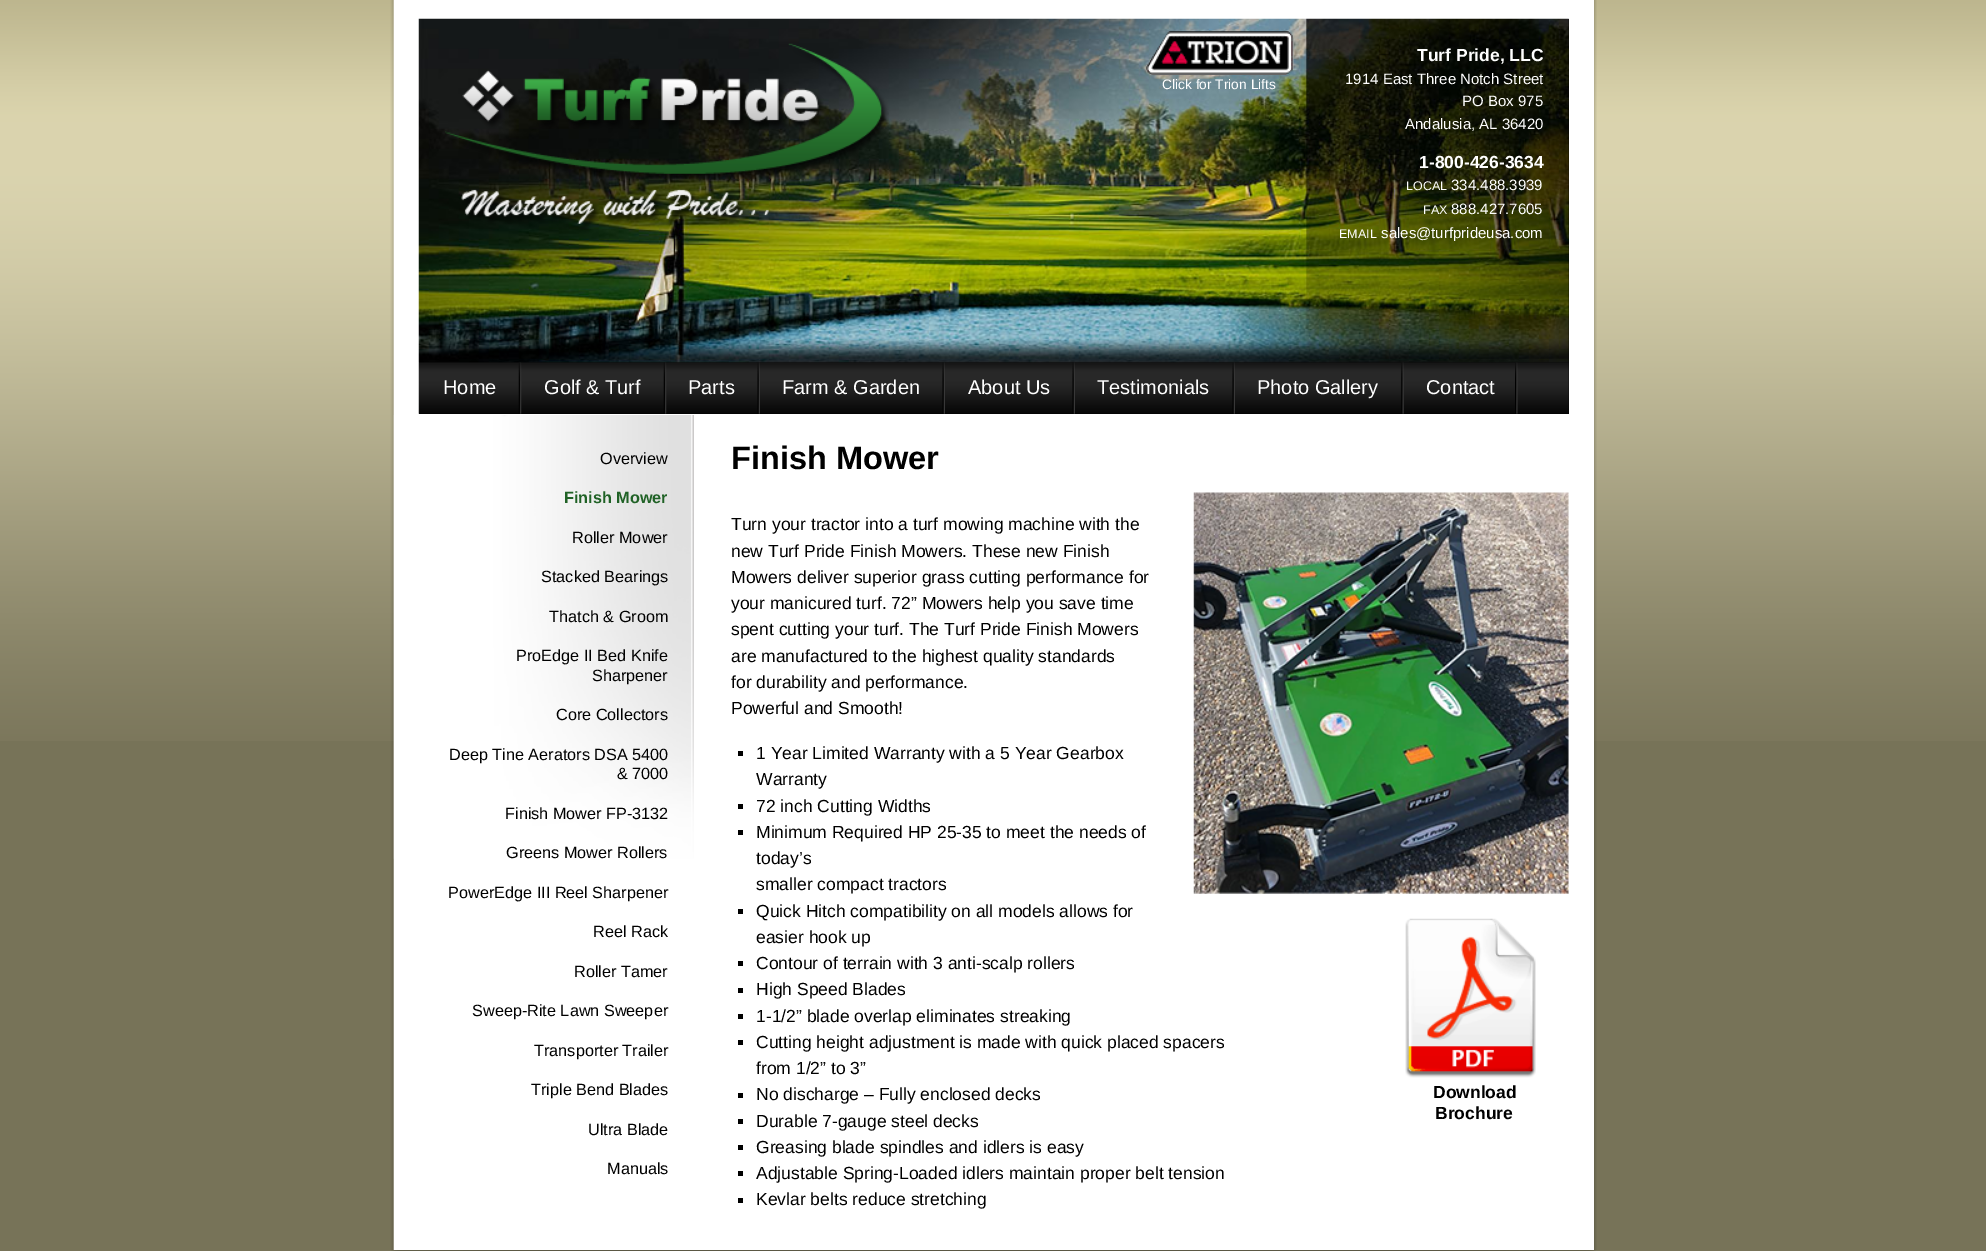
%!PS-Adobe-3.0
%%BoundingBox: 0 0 1986 1251
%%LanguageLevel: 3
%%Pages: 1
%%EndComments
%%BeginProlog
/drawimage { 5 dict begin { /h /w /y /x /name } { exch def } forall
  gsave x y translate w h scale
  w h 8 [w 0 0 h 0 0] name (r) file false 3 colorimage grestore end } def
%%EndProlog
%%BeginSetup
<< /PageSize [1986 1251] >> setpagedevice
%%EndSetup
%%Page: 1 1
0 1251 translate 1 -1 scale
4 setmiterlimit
0.467 0.451 0.345 setrgbcolor
0 0 1986 1251 rectfill
(images/1.raw) 0 0 1986 741 drawimage
(images/2.raw) 390 0 1207 1250 drawimage
1 setgray
1593 0 1 1250 rectfill
0 setgray
419 19 1150 395 rectfill
(images/3.raw) 418 18 1151 345 drawimage
(images/4.raw) 445 43 444 187 drawimage
(images/5.raw) 1146 31 148 44 drawimage
(images/6.raw) 418 362 1151 52 drawimage
(images/7.raw) 518 362 4 52 drawimage
(images/8.raw) 663 362 4 52 drawimage
(images/9.raw) 757 362 3 52 drawimage
(images/10.raw) 942 362 3 52 drawimage
(images/11.raw) 1072 362 3 52 drawimage
(images/12.raw) 1232 362 3 52 drawimage
(images/13.raw) 1401 362 3 52 drawimage
(images/14.raw) 1515 362 3 52 drawimage
(images/15.raw) 393 415 301 444 drawimage
738 751 5 5 rectfill
738 804 5 5 rectfill
738 830 5 5 rectfill
738 909 5 5 rectfill
738 961 5 5 rectfill
738 988 5 5 rectfill
738 1014 5 5 rectfill
738 1040 5 5 rectfill
738 1093 5 5 rectfill
738 1119 5 5 rectfill
738 1145 5 5 rectfill
738 1171 5 5 rectfill
738 1198 5 5 rectfill
(images/16.raw) 1193 492 376 402 drawimage
(images/17.raw) 1405 918 131 160 drawimage
(images/18.raw) 391 1250 1205 1 drawimage
/LiberationSans-Regular [13.75 0 0 -13.75 0 0] selectfont
1 setgray
1162 89 moveto (Click for Trion Lifts) show
/LiberationSans-Bold [17.5 0 0 -17.5 0 0] selectfont
1417 61 moveto (Turf Pride, LLC) show
/LiberationSans-Regular [15 0 0 -15 0 0] selectfont
1345 84 moveto (1914 East Three Notch Street) show
1462 106 moveto (PO Box 975) show
1405 129 moveto (Andalusia, AL 36420) show
/LiberationSans-Bold [17.5 0 0 -17.5 0 0] selectfont
1419 168 moveto (1-800-426-3634) show
/LiberationSans-Regular [12.5 0 0 -12.5 0 0] selectfont
1406 190 moveto (LOCAL) show
/LiberationSans-Regular [15 0 0 -15 0 0] selectfont
1451 190 moveto (334.488.3939) show
/LiberationSans-Regular [12.5 0 0 -12.5 0 0] selectfont
1423 214 moveto (FAX) show
/LiberationSans-Regular [15 0 0 -15 0 0] selectfont
1451 214 moveto (888.427.7605) show
/LiberationSans-Regular [12.5 0 0 -12.5 0 0] selectfont
1339 238 moveto (EMAIL) show
/LiberationSans-Regular [15 0 0 -15 0 0] selectfont
1381 238 moveto (sales@turfprideusa.com) show
/LiberationSans-Regular [20 0 0 -20 0 0] selectfont
443 394 moveto (Home) show
544 394 moveto (Golf & Turf) show
688 394 moveto (Parts) show
782 394 moveto (Farm & Garden) show
968 394 moveto (About Us) show
1097 394 moveto (Testimonials) show
1257 394 moveto (Photo Gallery) show
1426 394 moveto (Contact) show
/LiberationSans-Regular [16.25 0 0 -16.25 0 0] selectfont
0 setgray
600 464 moveto (Overview) show
/LiberationSans-Bold [16.25 0 0 -16.25 0 0] selectfont
0.125 0.384 0.149 setrgbcolor
564 503 moveto (Finish Mower) show
/LiberationSans-Regular [16.25 0 0 -16.25 0 0] selectfont
0 setgray
572 543 moveto (Roller Mower) show
541 582 moveto (Stacked Bearings) show
549 622 moveto (Thatch & Groom) show
516 661 moveto (ProEdge II Bed Knife) show
592 681 moveto (Sharpener) show
556 720 moveto (Core Collectors) show
449 760 moveto (Deep Tine Aerators DSA 5400) show
617 779 moveto (& 7000) show
505 819 moveto (Finish Mower FP-3132) show
506 858 moveto (Greens Mower Rollers) show
448 898 moveto (PowerEdge III Reel Sharpener) show
593 937 moveto (Reel Rack) show
574 977 moveto (Roller Tamer) show
472 1016 moveto (Sweep-Rite Lawn Sweeper) show
534 1056 moveto (Transporter Trailer) show
531 1095 moveto (Triple Bend Blades) show
588 1135 moveto (Ultra Blade) show
607 1174 moveto (Manuals) show
/LiberationSans-Bold [32.5 0 0 -32.5 0 0] selectfont
731 469 moveto (Finish Mower) show
/LiberationSans-Regular [17.5 0 0 -17.5 0 0] selectfont
731 530 moveto (Turn your tractor into a turf mowing machine with the) show
731 557 moveto (new Turf Pride Finish Mowers. These new Finish) show
731 583 moveto (Mowers deliver superior grass cutting performance for) show
731 609 moveto (your manicured turf. 72” Mowers help you save time) show
731 635 moveto (spent cutting your turf. The Turf Pride Finish Mowers) show
731 662 moveto (are manufactured to the highest quality standards) show
731 688 moveto (for durability and performance.) show
731 714 moveto (Powerful and Smooth!) show
756 759 moveto (1 Year Limited Warranty with a 5 Year Gearbox) show
756 785 moveto (Warranty) show
756 812 moveto (72 inch Cutting Widths) show
756 838 moveto (Minimum Required HP 25-35 to meet the needs of) show
756 864 moveto (today’s) show
756 890 moveto (smaller compact tractors) show
756 917 moveto (Quick Hitch compatibility on all models allows for) show
756 943 moveto (easier hook up) show
756 969 moveto (Contour of terrain with 3 anti-scalp rollers) show
756 995 moveto (High Speed Blades) show
756 1022 moveto (1-1/2” blade overlap eliminates streaking) show
756 1048 moveto (Cutting height adjustment is made with quick placed spacers) show
756 1074 moveto (from 1/2” to 3”) show
756 1100 moveto (No discharge – Fully enclosed decks) show
756 1127 moveto (Durable 7-gauge steel decks) show
756 1153 moveto (Greasing blade spindles and idlers is easy) show
756 1179 moveto (Adjustable Spring-Loaded idlers maintain proper belt tension) show
756 1205 moveto (Kevlar belts reduce stretching) show
/LiberationSans-Bold [17.5 0 0 -17.5 0 0] selectfont
1433 1098 moveto (Download) show
1435 1119 moveto (Brochure) show
showpage
%%EOF
